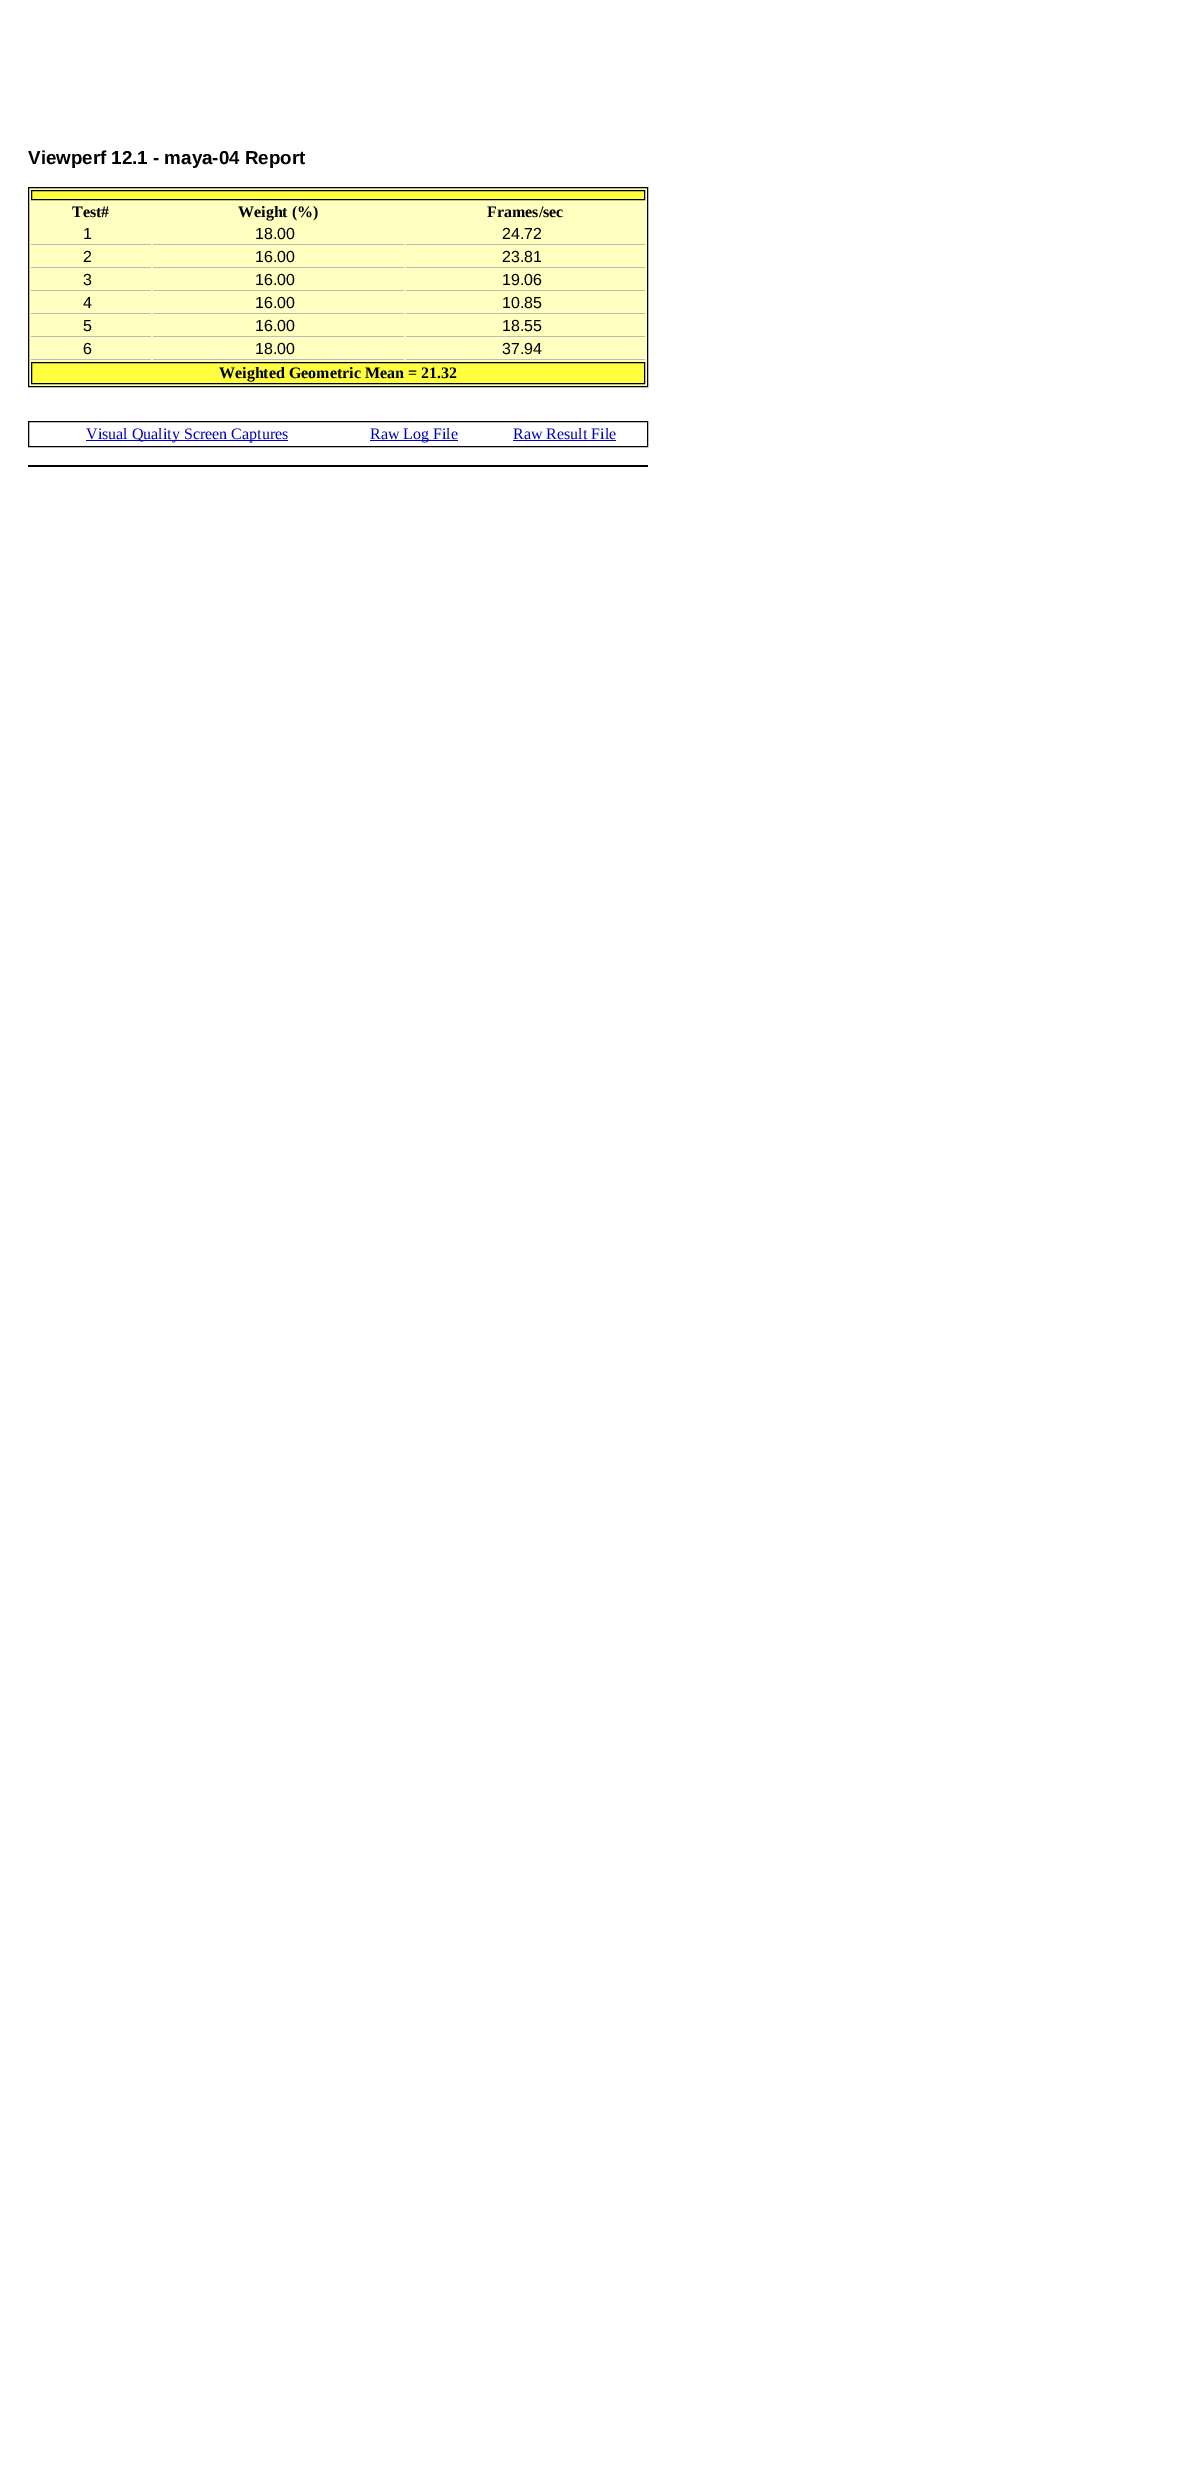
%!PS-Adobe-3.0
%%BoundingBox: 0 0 1180 2490
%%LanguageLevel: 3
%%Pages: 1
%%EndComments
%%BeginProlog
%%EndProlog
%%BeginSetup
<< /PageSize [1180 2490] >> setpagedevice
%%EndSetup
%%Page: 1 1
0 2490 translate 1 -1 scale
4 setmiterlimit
1 setgray
0 0 1180 2490 rectfill
1 1 0.753 setrgbcolor
newpath 28.5 187.5 moveto 647.5 187.5 lineto 647.5 386.5 lineto 28.5 386.5 lineto closepath gsave fill grestore
0 setgray
stroke
1 1 0.251 setrgbcolor
newpath 31.5 190.5 moveto 644.5 190.5 lineto 644.5 199.5 lineto 31.5 199.5 lineto closepath gsave fill grestore
0 setgray
stroke
0.729 setgray
31 244 120 1 rectfill
153 244 251 1 rectfill
406 244 239 1 rectfill
31 267 120 1 rectfill
153 267 251 1 rectfill
406 267 239 1 rectfill
31 290 120 1 rectfill
153 290 251 1 rectfill
406 290 239 1 rectfill
31 313 120 1 rectfill
153 313 251 1 rectfill
406 313 239 1 rectfill
31 336 120 1 rectfill
153 336 251 1 rectfill
406 336 239 1 rectfill
31 359 120 1 rectfill
153 359 251 1 rectfill
406 359 239 1 rectfill
1 1 0.251 setrgbcolor
newpath 31.5 362.5 moveto 644.5 362.5 lineto 644.5 383.5 lineto 31.5 383.5 lineto closepath gsave fill grestore
0 setgray
stroke
28.5 421.5 619 25 rectstroke
0 0 0.733 setrgbcolor
86 440 202 1 rectfill
370 440 88 1 rectfill
513 440 103 1 rectfill
0 setgray
28 465 620 2 rectfill
/LiberationSans-Bold [18.75 0 0 -18.75 0 0] selectfont
28 164 moveto (Viewperf 12.1 - maya-04 Report) show
/LiberationSerif-Bold [16 0 0 -16 0 0] selectfont
72 217 moveto (Test#) show
238 217 moveto (Weight \(%\)) show
487 217 moveto (Frames/sec) show
/LiberationSans-Regular [16 0 0 -16 0 0] selectfont
83 239 moveto (1) show
255 239 moveto (18.00) show
502 239 moveto (24.72) show
83 262 moveto (2) show
255 262 moveto (16.00) show
502 262 moveto (23.81) show
83 285 moveto (3) show
255 285 moveto (16.00) show
502 285 moveto (19.06) show
83 308 moveto (4) show
255 308 moveto (16.00) show
502 308 moveto (10.85) show
83 331 moveto (5) show
255 331 moveto (16.00) show
502 331 moveto (18.55) show
83 354 moveto (6) show
255 354 moveto (18.00) show
502 354 moveto (37.94) show
/LiberationSerif-Bold [16 0 0 -16 0 0] selectfont
219 378 moveto (Weighted Geometric Mean = 21.32) show
/LiberationSerif-Regular [16 0 0 -16 0 0] selectfont
0 0 0.733 setrgbcolor
86 439 moveto (Visual Quality Screen Captures) show
370 439 moveto (Raw Log File) show
513 439 moveto (Raw Result File) show
showpage
%%EOF
